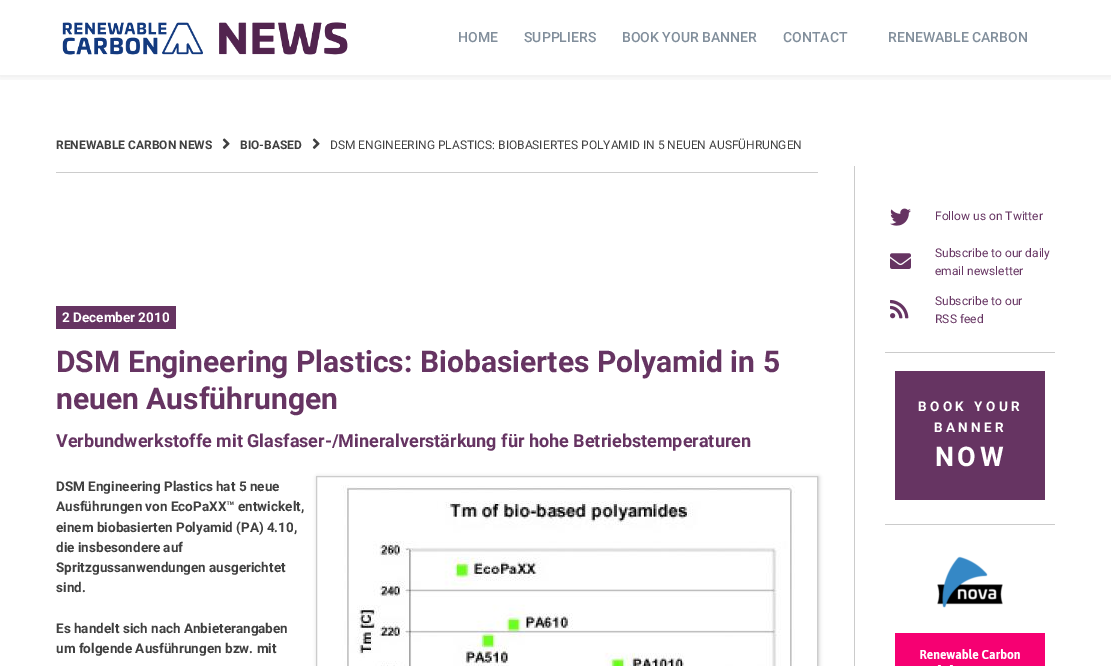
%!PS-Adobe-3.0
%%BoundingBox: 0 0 1111 666
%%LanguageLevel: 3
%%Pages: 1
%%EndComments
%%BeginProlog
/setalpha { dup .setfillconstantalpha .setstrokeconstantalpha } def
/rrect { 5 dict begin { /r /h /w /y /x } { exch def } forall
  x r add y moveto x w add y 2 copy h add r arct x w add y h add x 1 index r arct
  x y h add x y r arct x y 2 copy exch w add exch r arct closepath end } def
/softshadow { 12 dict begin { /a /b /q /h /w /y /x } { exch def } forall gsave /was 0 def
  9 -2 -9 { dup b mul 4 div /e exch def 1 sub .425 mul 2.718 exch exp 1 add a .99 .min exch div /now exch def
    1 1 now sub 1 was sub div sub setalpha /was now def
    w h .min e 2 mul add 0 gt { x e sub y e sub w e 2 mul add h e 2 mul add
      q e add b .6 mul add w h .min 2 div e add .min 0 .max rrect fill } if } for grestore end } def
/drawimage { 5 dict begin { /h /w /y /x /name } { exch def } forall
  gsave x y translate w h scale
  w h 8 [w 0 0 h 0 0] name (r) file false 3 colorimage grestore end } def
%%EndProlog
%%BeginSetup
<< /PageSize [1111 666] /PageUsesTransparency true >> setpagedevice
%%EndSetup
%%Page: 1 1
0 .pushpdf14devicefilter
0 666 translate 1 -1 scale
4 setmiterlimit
1 setgray
0 0 1111 666 rectfill
gsave
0 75 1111 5 rectclip
0 setgray
0 1 1111 75 0 5 0.1 softshadow
grestore
(images/1.raw) 62 22 286 33 drawimage
(images/2.raw) 222 138 8 11 drawimage
(images/2.raw) 312 138 8 11 drawimage
0.796 setgray
854 166 1 500 rectfill
0.8 setgray
56 172 762 1 rectfill
0.4 0.204 0.384 setrgbcolor
56 306 120 23 rectfill
gsave
newpath 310 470 moveto 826 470 lineto 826 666 lineto 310 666 lineto closepath 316 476 moveto 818 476 lineto 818 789 lineto 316 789 lineto closepath eoclip newpath
0.8 setgray
317 477 502 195 0 2 1 softshadow
grestore
0.8 setgray
316.5 476.5 501 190 rectstroke
(images/3.raw) 341 485 454 181 drawimage
0.796 setgray
885 352 170 1 rectfill
(images/4.raw) 890 208 21 18 drawimage
(images/5.raw) 890 253 21 16 drawimage
(images/6.raw) 890 299 19 20 drawimage
885 524 170 1 rectfill
0.4 0.204 0.384 setrgbcolor
895 371 150 129 rectfill
(images/7.raw) 937 556 66 52 drawimage
(images/8.raw) 895 633 150 33 drawimage
/Roboto-Medium [14 0 0 -14 0 0] selectfont
0.506 0.557 0.608 setrgbcolor
458 42 moveto (HOME) show
524 42 moveto (SUPPLIERS) show
622 42 moveto (BOOK YOUR BANNER) show
783 42 moveto (CONTACT) show
888 42 moveto (RENEWABLE CARBON) show
/Roboto-Bold [12 0 0 -12 0 0] selectfont
0.251 setgray
56 149 moveto (RENEWABLE CARBON NEWS) show
240 149 moveto (BIO-BASED) show
/Roboto-Regular [12 0 0 -12 0 0] selectfont
330 149 moveto (DSM ENGINEERING PLASTICS: BIOBASIERTES POLYAMID IN 5 NEUEN AUSFÜHRUNGEN) show
/Roboto-Bold [13.5 0 0 -13.5 0 0] selectfont
1 setgray
62 322 moveto (2 December 2010) show
/Roboto-Bold [30 0 0 -30 0 0] selectfont
0.4 0.204 0.384 setrgbcolor
56 372 moveto (DSM Engineering Plastics: Biobasiertes Polyamid in 5) show
56 409 moveto (neuen Ausführungen) show
/Roboto-Bold [18 0 0 -18 0 0] selectfont
56 447 moveto (Verbundwerkstoffe mit Glasfaser-/Mineralverstärkung für hohe Betriebstemperaturen) show
/Roboto-Bold [13.5 0 0 -13.5 0 0] selectfont
0.251 setgray
56 491 moveto (DSM Engineering Plastics hat 5 neue) show
56 511 moveto (Ausführungen von EcoPaXX™ entwickelt,) show
56 532 moveto (einem biobasierten Polyamid \(PA\) 4.10,) show
56 552 moveto (die insbesondere auf) show
56 572 moveto (Spritzgussanwendungen ausgerichtet) show
56 592 moveto (sind.) show
56 633 moveto (Es handelt sich nach Anbieterangaben) show
56 653 moveto (um folgende Ausführungen bzw. mit) show
/Roboto-Regular [12 0 0 -12 0 0] selectfont
0.4 0.204 0.384 setrgbcolor
935 220 moveto (Follow us on Twitter) show
935 257 moveto (Subscribe to our daily) show
935 275 moveto (email newsletter) show
935 305 moveto (Subscribe to our) show
935 323 moveto (RSS feed) show
/Roboto-Bold [13.5 0 0 -13.5 0 0] selectfont
1 setgray
918 411 moveto 3.4 0 (BOOK YOUR) ashow
934 432 moveto 3.4 0 (BANNER) ashow
/Roboto-Bold [27 0 0 -27 0 0] selectfont
935 466 moveto 3.4 0 (NOW) ashow
.poppdf14devicefilter showpage
%%EOF
